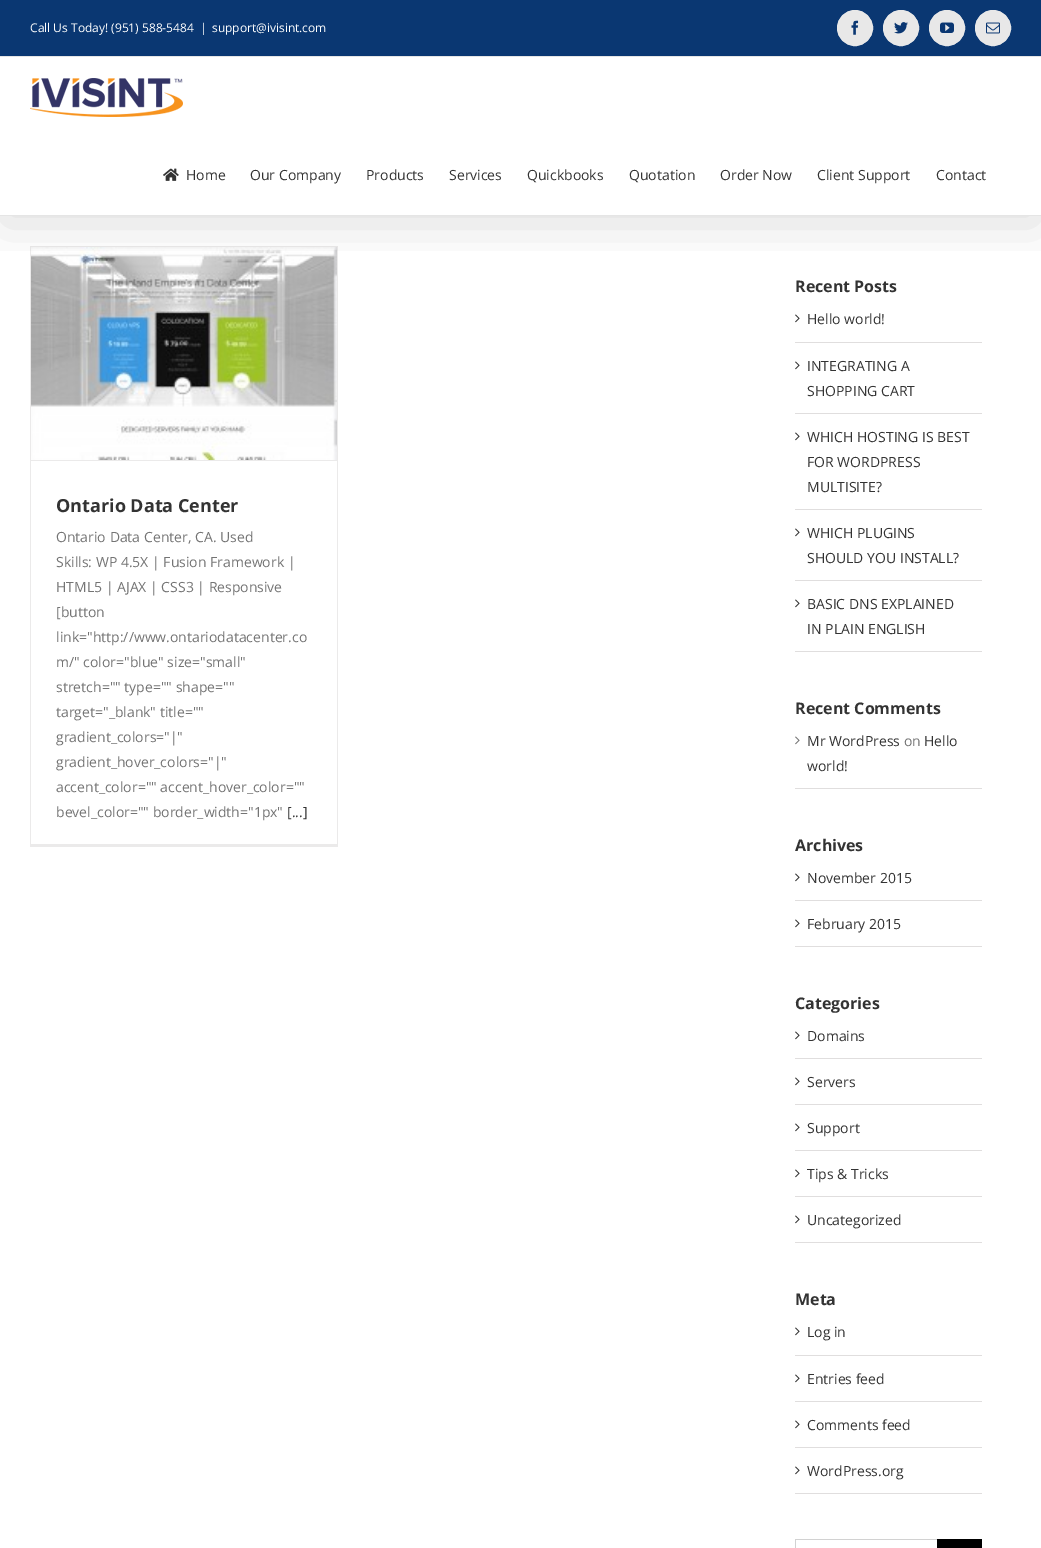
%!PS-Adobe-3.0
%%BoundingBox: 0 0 1041 1548
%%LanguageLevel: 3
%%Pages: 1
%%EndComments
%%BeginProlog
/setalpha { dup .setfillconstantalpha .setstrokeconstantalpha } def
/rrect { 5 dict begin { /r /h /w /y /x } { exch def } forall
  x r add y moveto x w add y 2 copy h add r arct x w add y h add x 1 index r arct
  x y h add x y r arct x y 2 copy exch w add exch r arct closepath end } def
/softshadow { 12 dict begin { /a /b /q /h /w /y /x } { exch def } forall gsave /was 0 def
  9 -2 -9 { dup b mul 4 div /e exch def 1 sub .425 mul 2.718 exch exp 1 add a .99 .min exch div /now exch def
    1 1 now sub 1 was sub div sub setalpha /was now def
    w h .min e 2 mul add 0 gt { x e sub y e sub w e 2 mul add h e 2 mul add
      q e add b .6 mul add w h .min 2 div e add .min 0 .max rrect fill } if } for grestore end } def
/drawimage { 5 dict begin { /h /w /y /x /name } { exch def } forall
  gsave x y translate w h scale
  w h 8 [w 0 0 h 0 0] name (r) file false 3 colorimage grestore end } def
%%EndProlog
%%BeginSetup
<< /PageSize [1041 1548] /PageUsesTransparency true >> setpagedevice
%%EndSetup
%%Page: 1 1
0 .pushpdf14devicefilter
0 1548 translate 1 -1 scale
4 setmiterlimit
1 setgray
0 0 1041 1548 rectfill
0.922 0.918 0.918 setrgbcolor
30 246 308 1 rectfill
337 246 1 601 rectfill
30 844 308 3 rectfill
30 246 1 601 rectfill
(images/7.raw) 31 247 306 213 drawimage
gsave
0 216 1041 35 rectclip
0 setgray
2 12 1037 212 0 25 0.14 softshadow
grestore
0.039 0.216 0.447 setrgbcolor
0 0 1041 56 rectfill
0.898 setgray
0 56 1041 1 rectfill
0.91 setgray
newpath 855 28 17.5 0 360 arc closepath gsave fill grestore
stroke
(images/1.raw) 851 20 8 15 drawimage
newpath 901 28 17.5 0 360 arc closepath gsave fill grestore
stroke
(images/2.raw) 894 22 14 12 drawimage
newpath 947 28 17.5 0 360 arc closepath gsave fill grestore
stroke
(images/3.raw) 940 22 14 11 drawimage
newpath 993 28 17.5 0 360 arc closepath gsave fill grestore
stroke
(images/4.raw) 986 22 14 12 drawimage
0.898 setgray
0 215 1041 1 rectfill
(images/5.raw) 30 78 153 39 drawimage
(images/6.raw) 163 168 16 13 drawimage
0.922 0.918 0.918 setrgbcolor
31 460 306 1 rectfill
0.878 0.871 0.871 setrgbcolor
795 342 187 1 rectfill
(images/8.raw) 795 314 5 9 drawimage
795 413 187 1 rectfill
(images/8.raw) 795 361 5 9 drawimage
795 509 187 1 rectfill
(images/8.raw) 795 432 5 9 drawimage
795 580 187 1 rectfill
(images/8.raw) 795 528 5 9 drawimage
795 651 187 1 rectfill
(images/8.raw) 795 599 5 9 drawimage
795 788 187 1 rectfill
(images/9.raw) 795 736 5 9 drawimage
795 900 187 1 rectfill
(images/8.raw) 795 873 5 9 drawimage
795 946 187 1 rectfill
(images/8.raw) 795 919 5 9 drawimage
795 1058 187 1 rectfill
(images/8.raw) 795 1031 5 9 drawimage
795 1104 187 1 rectfill
(images/8.raw) 795 1077 5 9 drawimage
795 1150 187 1 rectfill
(images/8.raw) 795 1123 5 9 drawimage
795 1196 187 1 rectfill
(images/8.raw) 795 1169 5 9 drawimage
795 1242 187 1 rectfill
(images/8.raw) 795 1215 5 9 drawimage
795 1355 187 1 rectfill
(images/8.raw) 795 1327 5 9 drawimage
795 1401 187 1 rectfill
(images/8.raw) 795 1374 5 9 drawimage
795 1447 187 1 rectfill
(images/8.raw) 795 1420 5 9 drawimage
795 1493 187 1 rectfill
(images/8.raw) 795 1466 5 9 drawimage
0.824 setgray
795 1539 142 1 rectfill
795 1539 1 9 rectfill
0 setgray
937 1539 45 9 rectfill
/OpenSans-Regular [12 0 0 -12 0 0] selectfont
1 setgray
30 32 moveto (Call Us Today! \(951\) 588-5484) show
200 32 moveto (|) show
212 32 moveto (support@ivisint.com) show
/OpenSans-Regular [14 0 0 -14 0 0] selectfont
0.2 setgray
186 180 moveto (Home) show
250 180 moveto (Our Company) show
366 180 moveto (Products) show
449 180 moveto (Services) show
527 180 moveto (Quickbooks) show
629 180 moveto (Quotation) show
720 180 moveto (Order Now) show
817 180 moveto (Client Support) show
936 180 moveto (Contact) show
/OpenSans-Bold [18 0 0 -18 0 0] selectfont
56 512 moveto (Ontario Data Center) show
/OpenSans-Regular [14 0 0 -14 0 0] selectfont
0.455 setgray
56 542 moveto (Ontario Data Center, CA. Used) show
56 567 moveto (Skills: WP 4.5X | Fusion Framework |) show
56 592 moveto (HTML5 | AJAX | CSS3 | Responsive) show
56 617 moveto ([button) show
56 642 moveto (link="http://www.ontariodatacenter.co) show
56 667 moveto (m/" color="blue" size="small") show
56 692 moveto (stretch="" type="" shape="") show
56 717 moveto (target="_blank" title="") show
56 742 moveto (gradient_colors="|") show
56 767 moveto (gradient_hover_colors="|") show
56 792 moveto (accent_color="" accent_hover_color="") show
56 817 moveto (bevel_color="" border_width="1px") show
0.2 setgray
287 817 moveto ([...]) show
/OpenSans-Bold [16 0 0 -16 0 0] selectfont
795 292 moveto (Recent Posts) show
/OpenSans-Regular [14 0 0 -14 0 0] selectfont
807 324 moveto (Hello world!) show
807 371 moveto (INTEGRATING A) show
807 396 moveto (SHOPPING CART) show
807 442 moveto (WHICH HOSTING IS BEST) show
807 467 moveto (FOR WORDPRESS) show
807 492 moveto (MULTISITE?) show
807 538 moveto (WHICH PLUGINS) show
807 563 moveto (SHOULD YOU INSTALL?) show
807 609 moveto (BASIC DNS EXPLAINED) show
807 634 moveto (IN PLAIN ENGLISH) show
/OpenSans-Bold [16 0 0 -16 0 0] selectfont
795 714 moveto (Recent Comments) show
/OpenSans-Regular [14 0 0 -14 0 0] selectfont
807 746 moveto (Mr WordPress) show
0.455 setgray
904 746 moveto (on) show
0.2 setgray
924 746 moveto (Hello) show
807 771 moveto (world!) show
/OpenSans-Bold [16 0 0 -16 0 0] selectfont
795 851 moveto (Archives) show
/OpenSans-Regular [14 0 0 -14 0 0] selectfont
807 883 moveto (November 2015) show
807 929 moveto (February 2015) show
/OpenSans-Bold [16 0 0 -16 0 0] selectfont
795 1009 moveto (Categories) show
/OpenSans-Regular [14 0 0 -14 0 0] selectfont
807 1041 moveto (Domains) show
807 1087 moveto (Servers) show
807 1133 moveto (Support) show
807 1179 moveto (Tips & Tricks) show
807 1225 moveto (Uncategorized) show
/OpenSans-Bold [16 0 0 -16 0 0] selectfont
795 1305 moveto (Meta) show
/OpenSans-Regular [14 0 0 -14 0 0] selectfont
807 1337 moveto (Log in) show
807 1384 moveto (Entries feed) show
807 1430 moveto (Comments feed) show
807 1476 moveto (WordPress.org) show
.poppdf14devicefilter showpage
%%EOF
